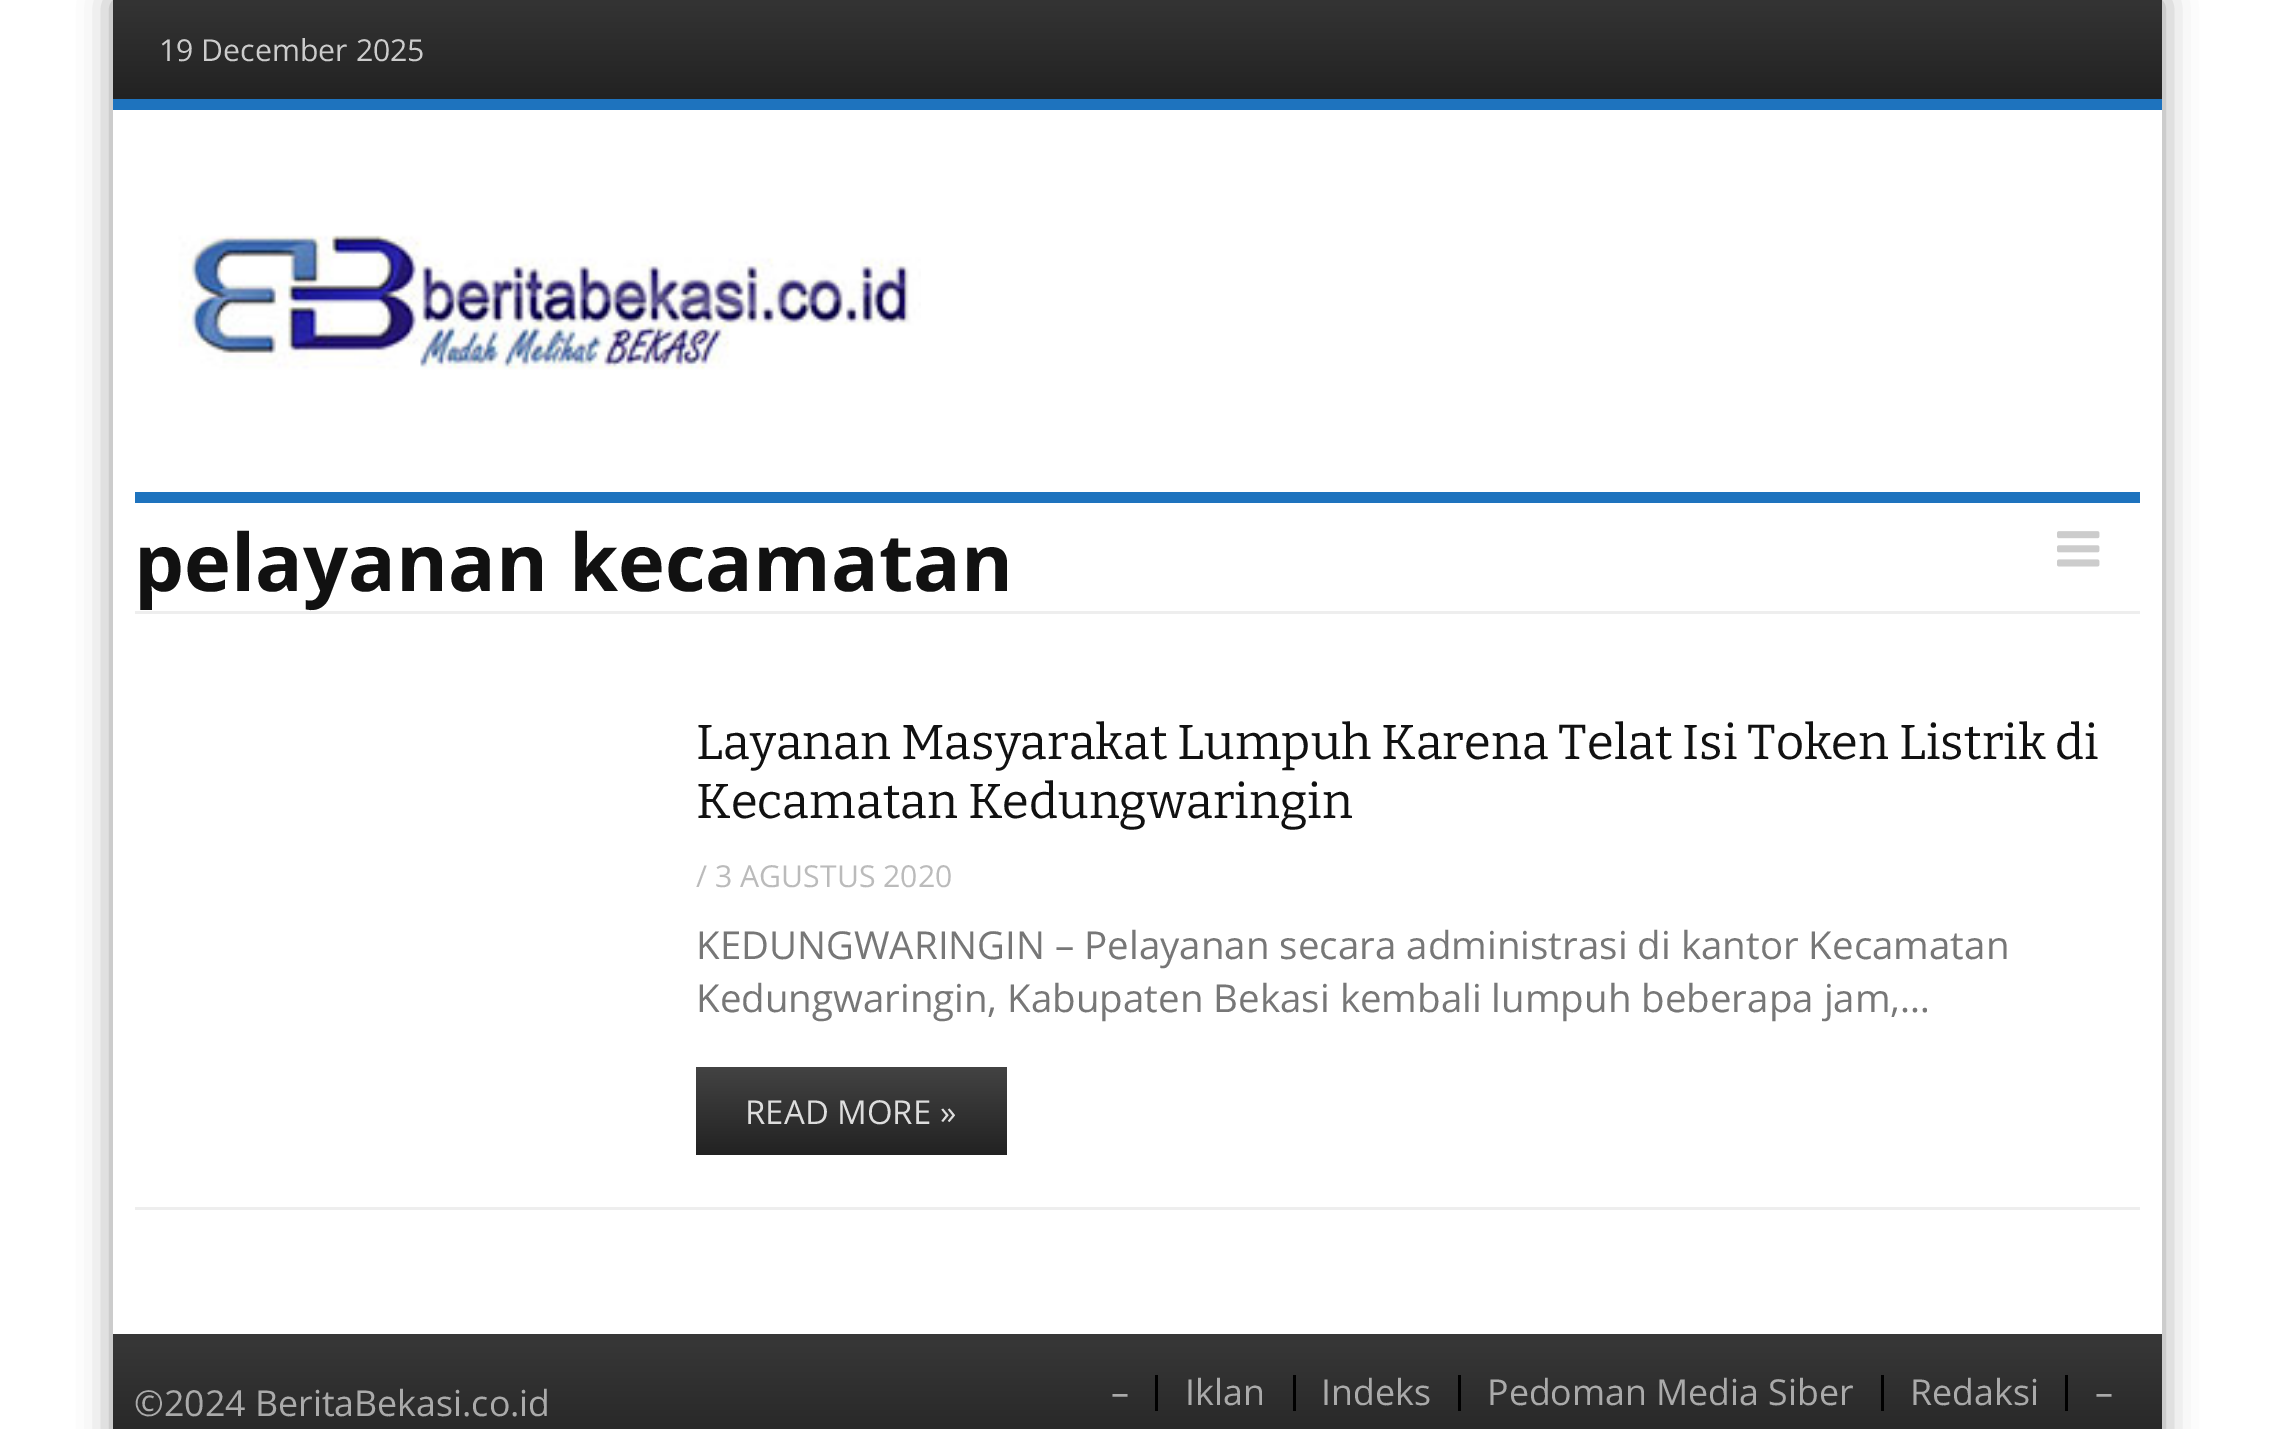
%!PS-Adobe-3.0
%%BoundingBox: 0 0 2272 1429
%%LanguageLevel: 3
%%Pages: 1
%%EndComments
%%BeginProlog
/setalpha { dup .setfillconstantalpha .setstrokeconstantalpha } def
/rrect { 5 dict begin { /r /h /w /y /x } { exch def } forall
  x r add y moveto x w add y 2 copy h add r arct x w add y h add x 1 index r arct
  x y h add x y r arct x y 2 copy exch w add exch r arct closepath end } def
/softshadow { 12 dict begin { /a /b /q /h /w /y /x } { exch def } forall gsave /was 0 def
  9 -2 -9 { dup b mul 4 div /e exch def 1 sub .425 mul 2.718 exch exp 1 add a .99 .min exch div /now exch def
    1 1 now sub 1 was sub div sub setalpha /was now def
    w h .min e 2 mul add 0 gt { x e sub y e sub w e 2 mul add h e 2 mul add
      q e add b .6 mul add w h .min 2 div e add .min 0 .max rrect fill } if } for grestore end } def
/drawimage { 5 dict begin { /h /w /y /x /name } { exch def } forall
  gsave x y translate w h scale
  w h 8 [w 0 0 h 0 0] name (r) file false 3 colorimage grestore end } def
%%EndProlog
%%BeginSetup
<< /PageSize [2272 1429] /PageUsesTransparency true >> setpagedevice
%%EndSetup
%%Page: 1 1
0 .pushpdf14devicefilter
0 1429 translate 1 -1 scale
4 setmiterlimit
1 setgray
0 0 2272 1429 rectfill
0 setgray
113 0 2049 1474 0 16.5 0.4 softshadow
1 setgray
113 110 2049 1224 rectfill
gsave newpath 113 0 moveto 2162 0 lineto 2162 99 lineto 113 99 lineto closepath clip newpath
<< /ShadingType 2 /ColorSpace /DeviceRGB /Coords [1137 0 1137 99] /Extend [true true] /Function << /FunctionType 2 /Domain [0 1] /C0 [0.204 0.204 0.204] /C1 [0.133 0.133 0.133] /N 1 >> >> shfill grestore
0.118 0.451 0.745 setrgbcolor
113 99 2049 11 rectfill
(images/1.raw) 178 235 743 135 drawimage
135 492 2005 11 rectfill
(images/2.raw) 2057 531 43 36 drawimage
0.933 setgray
135 611 2005 3 rectfill
135 1207 2005 3 rectfill
gsave newpath 696 1067 moveto 1007 1067 lineto 1007 1155 lineto 696 1155 lineto closepath clip newpath
<< /ShadingType 2 /ColorSpace /DeviceRGB /Coords [851 1067 851 1155] /Extend [true true] /Function << /FunctionType 2 /Domain [0 1] /C0 [0.263 0.263 0.263] /C1 [0.133 0.133 0.133] /N 1 >> >> shfill grestore
gsave newpath 113 1334 moveto 2162 1334 lineto 2162 1429 lineto 113 1429 lineto closepath clip newpath
<< /ShadingType 2 /ColorSpace /DeviceRGB /Coords [1137 1334 1137 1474] /Extend [true true] /Function << /FunctionType 2 /Domain [0 1] /C0 [0.22 0.22 0.22] /C1 [0.133 0.133 0.133] /N 1 >> >> shfill grestore
0 setgray
1155 1375 3 36 rectfill
1293 1375 3 36 rectfill
1458 1375 3 36 rectfill
1881 1375 3 36 rectfill
2065 1375 3 36 rectfill
/OpenSans-Regular [30.25 0 0 -30.25 0 0] selectfont
0.8 setgray
159 61 moveto (19 December 2025) show
/OpenSans-Bold [79.25 0 0 -79.25 0 0] selectfont
0.067 setgray
134 591 moveto (pelayanan kecamatan) show
/Bitter-Thin [48.9 0 0 -48.9 0 0] selectfont
696 759 moveto (Layanan Masyarakat Lumpuh Karena Telat Isi Token Listrik di) show
696 818 moveto (Kecamatan Kedungwaringin) show
/OpenSans-Regular [30.25 0 0 -30.25 0 0] selectfont
0.733 setgray
696 887 moveto (/ 3 AGUSTUS 2020) show
/OpenSans-Regular [38.5 0 0 -38.5 0 0] selectfont
0.467 setgray
696 959 moveto (KEDUNGWARINGIN – Pelayanan secara administrasi di kantor Kecamatan) show
696 1012 moveto (Kedungwaringin, Kabupaten Bekasi kembali lumpuh beberapa jam,…) show
/OpenSans-Regular [33 0 0 -33 0 0] selectfont
0.867 setgray
745 1124 moveto (READ MORE ») show
/OpenSans-Regular [35.75 0 0 -35.75 0 0] selectfont
0.667 setgray
134 1416 moveto (©2024 BeritaBekasi.co.id) show
1111 1405 moveto (–) show
1185 1405 moveto (Iklan) show
1321 1405 moveto (Indeks) show
1487 1405 moveto (Pedoman Media Siber) show
1910 1405 moveto (Redaksi) show
2095 1405 moveto (–) show
.poppdf14devicefilter showpage
%%EOF
